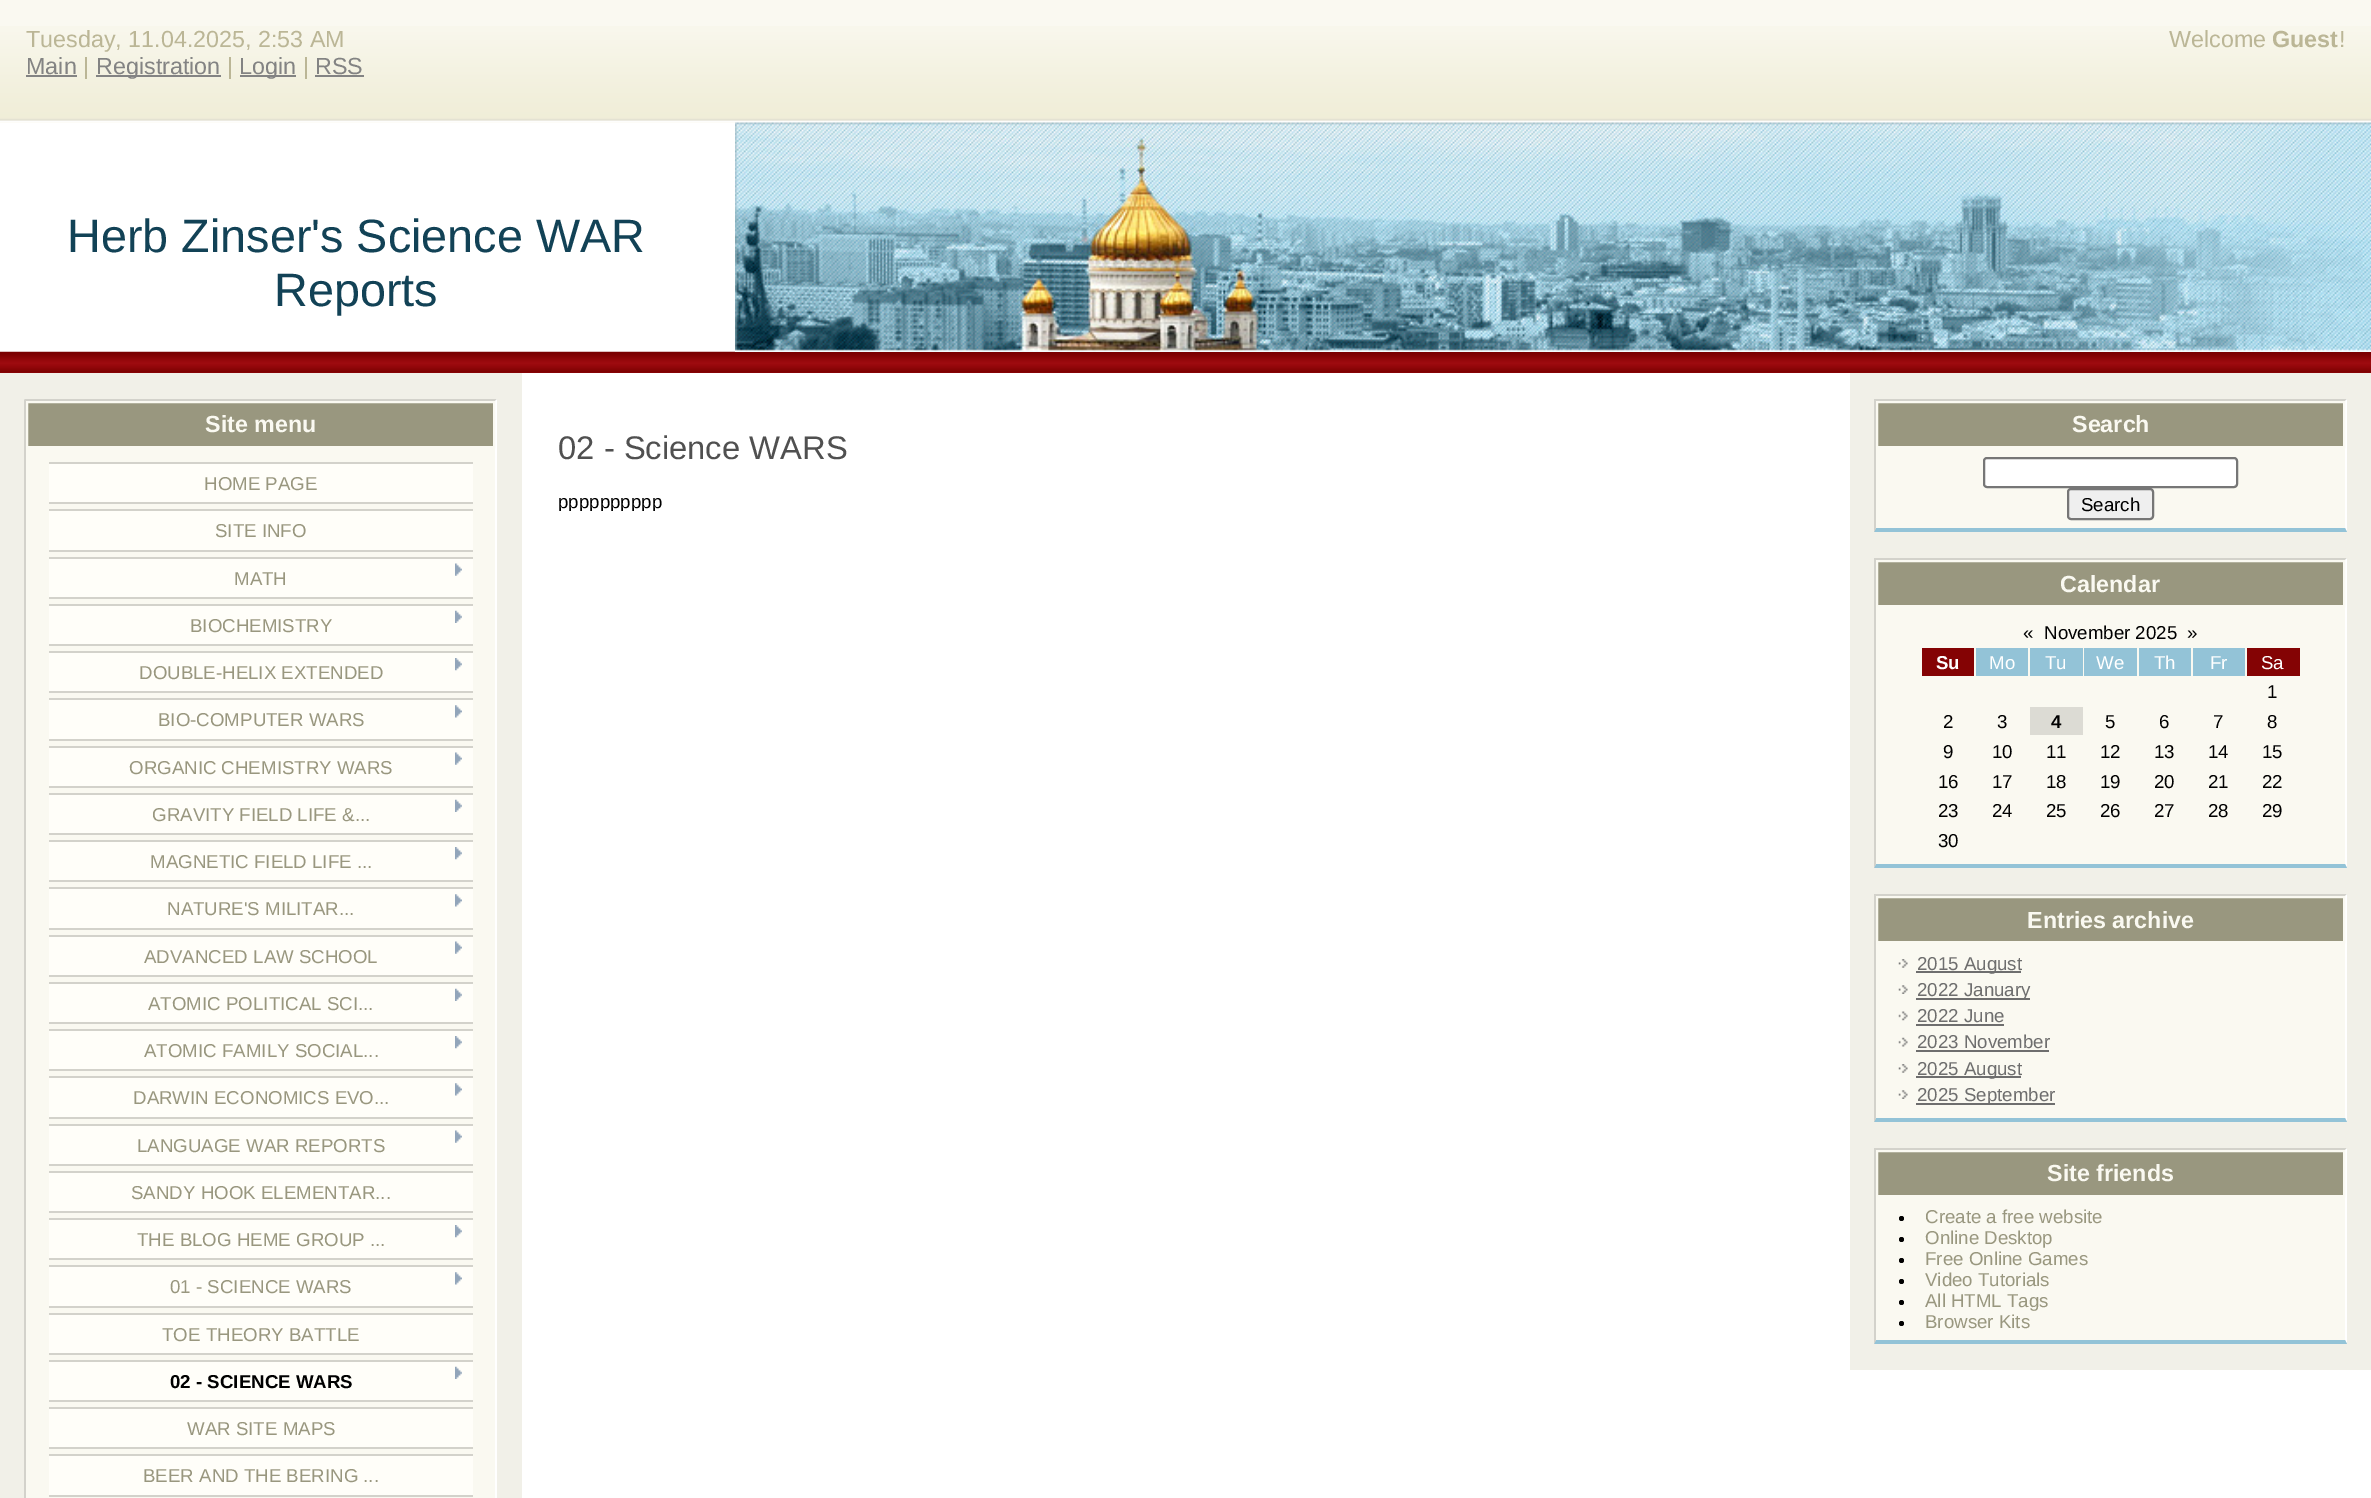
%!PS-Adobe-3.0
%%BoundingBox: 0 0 2371 1498
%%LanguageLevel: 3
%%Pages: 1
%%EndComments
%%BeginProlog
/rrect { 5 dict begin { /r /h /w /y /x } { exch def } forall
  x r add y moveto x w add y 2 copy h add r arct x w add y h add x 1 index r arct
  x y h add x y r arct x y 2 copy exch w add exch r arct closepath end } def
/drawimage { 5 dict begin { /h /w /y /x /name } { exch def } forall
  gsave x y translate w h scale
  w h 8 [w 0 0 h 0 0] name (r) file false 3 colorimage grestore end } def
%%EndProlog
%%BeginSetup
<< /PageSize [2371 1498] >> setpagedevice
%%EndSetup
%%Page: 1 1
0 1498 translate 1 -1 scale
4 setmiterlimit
1 setgray
0 0 2371 1498 rectfill
0.98 0.976 0.945 setrgbcolor
0 0 2371 123 rectfill
(images/1.raw) 0 26 2371 97 drawimage
0.514 setgray
26 75 51 2 rectfill
96 75 125 2 rectfill
240 75 56 2 rectfill
315 75 49 2 rectfill
(images/3.raw) 0 351 2371 22 drawimage
(images/2.raw) 735 122 1636 230 drawimage
0.945 0.941 0.91 setrgbcolor
0 373 522 1125 rectfill
0.98 0.976 0.945 setrgbcolor
26 448 469 1050 rectfill
0.827 0.824 0.796 setrgbcolor
25 399 472 2 rectfill
1 setgray
newpath 497 399 moveto 497 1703 lineto 495 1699 lineto 495 401 lineto closepath fill
0.827 0.824 0.796 setrgbcolor
newpath 24 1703 moveto 24 399 lineto 26 401 lineto 26 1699 lineto closepath fill
0.6 0.592 0.498 setrgbcolor
newpath 27 402 moveto 494 402 lineto 494 447 lineto 27 447 lineto closepath gsave fill grestore
0.98 0.976 0.945 setrgbcolor
2 setlinewidth
stroke
1 0.996 0.976 setrgbcolor
49 464 424 38 rectfill
0.827 0.824 0.796 setrgbcolor
49 462 424 2 rectfill
49 502 424 2 rectfill
1 0.996 0.976 setrgbcolor
49 511 424 39 rectfill
0.827 0.824 0.796 setrgbcolor
49 509 424 2 rectfill
49 550 424 2 rectfill
1 0.996 0.976 setrgbcolor
49 559 424 38 rectfill
0.827 0.824 0.796 setrgbcolor
49 557 424 2 rectfill
49 597 424 2 rectfill
(images/4.raw) 455 563 7 13 drawimage
1 0.996 0.976 setrgbcolor
49 606 424 38 rectfill
0.827 0.824 0.796 setrgbcolor
49 604 424 2 rectfill
49 644 424 2 rectfill
(images/5.raw) 455 610 7 13 drawimage
1 0.996 0.976 setrgbcolor
49 653 424 38 rectfill
0.827 0.824 0.796 setrgbcolor
49 651 424 2 rectfill
49 691 424 2 rectfill
(images/6.raw) 455 658 7 13 drawimage
1 0.996 0.976 setrgbcolor
49 700 424 39 rectfill
0.827 0.824 0.796 setrgbcolor
49 698 424 2 rectfill
49 739 424 2 rectfill
(images/7.raw) 455 705 7 13 drawimage
1 0.996 0.976 setrgbcolor
49 748 424 38 rectfill
0.827 0.824 0.796 setrgbcolor
49 746 424 2 rectfill
49 786 424 2 rectfill
(images/4.raw) 455 752 7 13 drawimage
1 0.996 0.976 setrgbcolor
49 795 424 38 rectfill
0.827 0.824 0.796 setrgbcolor
49 793 424 2 rectfill
49 833 424 2 rectfill
(images/5.raw) 455 799 7 13 drawimage
1 0.996 0.976 setrgbcolor
49 842 424 38 rectfill
0.827 0.824 0.796 setrgbcolor
49 840 424 2 rectfill
49 880 424 2 rectfill
(images/6.raw) 455 847 7 13 drawimage
1 0.996 0.976 setrgbcolor
49 889 424 39 rectfill
0.827 0.824 0.796 setrgbcolor
49 887 424 2 rectfill
49 928 424 2 rectfill
(images/7.raw) 455 894 7 13 drawimage
1 0.996 0.976 setrgbcolor
49 937 424 38 rectfill
0.827 0.824 0.796 setrgbcolor
49 935 424 2 rectfill
49 975 424 2 rectfill
(images/4.raw) 455 941 7 13 drawimage
1 0.996 0.976 setrgbcolor
49 984 424 38 rectfill
0.827 0.824 0.796 setrgbcolor
49 982 424 2 rectfill
49 1022 424 2 rectfill
(images/5.raw) 455 988 7 13 drawimage
1 0.996 0.976 setrgbcolor
49 1031 424 38 rectfill
0.827 0.824 0.796 setrgbcolor
49 1029 424 2 rectfill
49 1069 424 2 rectfill
(images/6.raw) 455 1036 7 13 drawimage
1 0.996 0.976 setrgbcolor
49 1078 424 39 rectfill
0.827 0.824 0.796 setrgbcolor
49 1076 424 2 rectfill
49 1117 424 2 rectfill
(images/7.raw) 455 1083 7 13 drawimage
1 0.996 0.976 setrgbcolor
49 1126 424 38 rectfill
0.827 0.824 0.796 setrgbcolor
49 1124 424 2 rectfill
49 1164 424 2 rectfill
(images/4.raw) 455 1130 7 13 drawimage
1 0.996 0.976 setrgbcolor
49 1173 424 38 rectfill
0.827 0.824 0.796 setrgbcolor
49 1171 424 2 rectfill
49 1211 424 2 rectfill
1 0.996 0.976 setrgbcolor
49 1220 424 38 rectfill
0.827 0.824 0.796 setrgbcolor
49 1218 424 2 rectfill
49 1258 424 2 rectfill
(images/6.raw) 455 1225 7 13 drawimage
1 0.996 0.976 setrgbcolor
49 1267 424 39 rectfill
0.827 0.824 0.796 setrgbcolor
49 1265 424 2 rectfill
49 1306 424 2 rectfill
(images/7.raw) 455 1272 7 13 drawimage
1 0.996 0.976 setrgbcolor
49 1315 424 38 rectfill
0.827 0.824 0.796 setrgbcolor
49 1313 424 2 rectfill
49 1353 424 2 rectfill
1 0.996 0.976 setrgbcolor
49 1362 424 38 rectfill
0.827 0.824 0.796 setrgbcolor
49 1360 424 2 rectfill
49 1400 424 2 rectfill
(images/5.raw) 455 1366 7 13 drawimage
1 0.996 0.976 setrgbcolor
49 1409 424 38 rectfill
0.827 0.824 0.796 setrgbcolor
49 1407 424 2 rectfill
49 1447 424 2 rectfill
1 0.996 0.976 setrgbcolor
49 1456 424 39 rectfill
0.827 0.824 0.796 setrgbcolor
49 1454 424 2 rectfill
49 1495 424 2 rectfill
0.945 0.941 0.91 setrgbcolor
1850 373 521 997 rectfill
0.98 0.976 0.945 setrgbcolor
1876 448 469 80 rectfill
0.827 0.824 0.796 setrgbcolor
1874 399 473 2 rectfill
1 setgray
newpath 2347 399 moveto 2347 532 lineto 2345 528 lineto 2345 401 lineto closepath fill
0.576 0.765 0.843 setrgbcolor
newpath 2347 532 moveto 1874 532 lineto 1876 528 lineto 2345 528 lineto closepath fill
0.827 0.824 0.796 setrgbcolor
newpath 1874 532 moveto 1874 399 lineto 1876 401 lineto 1876 528 lineto closepath fill
0.6 0.592 0.498 setrgbcolor
newpath 1877 402 moveto 2344 402 lineto 2344 447 lineto 1877 447 lineto closepath gsave fill grestore
0.98 0.976 0.945 setrgbcolor
stroke
1 setgray
1984 458 253 29 3 rrect gsave fill grestore
0.463 setgray
stroke
0.937 setgray
2068 489 85 30 3 rrect gsave fill grestore
0.463 setgray
stroke
0.98 0.976 0.945 setrgbcolor
1876 607 469 257 rectfill
0.827 0.824 0.796 setrgbcolor
1874 558 473 2 rectfill
1 setgray
newpath 2347 558 moveto 2347 868 lineto 2345 864 lineto 2345 560 lineto closepath fill
0.576 0.765 0.843 setrgbcolor
newpath 2347 868 moveto 1874 868 lineto 1876 864 lineto 2345 864 lineto closepath fill
0.827 0.824 0.796 setrgbcolor
newpath 1874 868 moveto 1874 558 lineto 1876 560 lineto 1876 864 lineto closepath fill
0.6 0.592 0.498 setrgbcolor
newpath 1877 561 moveto 2344 561 lineto 2344 606 lineto 1877 606 lineto closepath gsave fill grestore
0.98 0.976 0.945 setrgbcolor
stroke
0.518 0.012 0.016 setrgbcolor
1922 648 52 28 rectfill
0.576 0.765 0.843 setrgbcolor
1976 648 52 28 rectfill
2030 648 53 28 rectfill
2084 648 53 28 rectfill
2139 648 52 28 rectfill
2193 648 52 28 rectfill
0.518 0.012 0.016 setrgbcolor
2247 648 53 28 rectfill
0.863 0.859 0.831 setrgbcolor
2030 707 53 28 rectfill
0.98 0.976 0.945 setrgbcolor
1876 943 469 175 rectfill
0.827 0.824 0.796 setrgbcolor
1874 894 473 2 rectfill
1 setgray
newpath 2347 894 moveto 2347 1122 lineto 2345 1118 lineto 2345 896 lineto closepath fill
0.576 0.765 0.843 setrgbcolor
newpath 2347 1122 moveto 1874 1122 lineto 1876 1118 lineto 2345 1118 lineto closepath fill
0.827 0.824 0.796 setrgbcolor
newpath 1874 1122 moveto 1874 894 lineto 1876 896 lineto 1876 1118 lineto closepath fill
0.6 0.592 0.498 setrgbcolor
newpath 1877 897 moveto 2344 897 lineto 2344 942 lineto 1877 942 lineto closepath gsave fill grestore
0.98 0.976 0.945 setrgbcolor
stroke
(images/8.raw) 1898 959 10 9 drawimage
0.431 setgray
1916 971 105 2 rectfill
(images/9.raw) 1898 985 10 9 drawimage
1916 998 114 2 rectfill
(images/10.raw) 1898 1011 10 10 drawimage
1916 1024 88 2 rectfill
(images/11.raw) 1898 1037 10 10 drawimage
1916 1050 133 2 rectfill
(images/8.raw) 1898 1064 10 9 drawimage
1916 1076 105 2 rectfill
(images/9.raw) 1898 1090 10 9 drawimage
1916 1103 139 2 rectfill
0.98 0.976 0.945 setrgbcolor
1876 1197 469 143 rectfill
0.827 0.824 0.796 setrgbcolor
1874 1148 473 2 rectfill
1 setgray
newpath 2347 1148 moveto 2347 1344 lineto 2345 1340 lineto 2345 1150 lineto closepath fill
0.576 0.765 0.843 setrgbcolor
newpath 2347 1344 moveto 1874 1344 lineto 1876 1340 lineto 2345 1340 lineto closepath fill
0.827 0.824 0.796 setrgbcolor
newpath 1874 1344 moveto 1874 1148 lineto 1876 1150 lineto 1876 1340 lineto closepath fill
0.6 0.592 0.498 setrgbcolor
newpath 1877 1151 moveto 2344 1151 lineto 2344 1196 lineto 1877 1196 lineto closepath gsave fill grestore
0.98 0.976 0.945 setrgbcolor
stroke
0 setgray
newpath 1901.5 1218.5 2.5 0 360 arc closepath fill
newpath 1901.5 1239.5 2.5 0 360 arc closepath fill
newpath 1901.5 1260.5 2.5 0 360 arc closepath fill
newpath 1901.5 1281.5 2.5 0 360 arc closepath fill
newpath 1901.5 1302.5 2.5 0 360 arc closepath fill
newpath 1901.5 1323.5 2.5 0 360 arc closepath fill
/LiberationSans-Regular [23.3 0 0 -23.3 0 0] selectfont
0.733 0.714 0.588 setrgbcolor
26 47 moveto (Tuesday, 11.04.2025, 2:53 AM) show
0.514 setgray
26 74 moveto (Main) show
0.733 0.714 0.588 setrgbcolor
83 74 moveto (|) show
0.514 setgray
96 74 moveto (Registration) show
0.733 0.714 0.588 setrgbcolor
227 74 moveto (|) show
0.514 setgray
239 74 moveto (Login) show
0.733 0.714 0.588 setrgbcolor
303 74 moveto (|) show
0.514 setgray
315 74 moveto (RSS) show
0.733 0.714 0.588 setrgbcolor
2169 47 moveto (Welcome) show
/LiberationSans-Bold [23.3 0 0 -23.3 0 0] selectfont
2272 47 moveto (Guest) show
/LiberationSans-Regular [23.3 0 0 -23.3 0 0] selectfont
2339 47 moveto (!) show
/LiberationSans-Regular [46.75 0 0 -46.75 0 0] selectfont
0.071 0.259 0.337 setrgbcolor
67 252 moveto (Herb Zinser's Science WAR) show
274 306 moveto (Reports) show
/LiberationSans-Bold [23.3 0 0 -23.3 0 0] selectfont
0.98 0.976 0.945 setrgbcolor
205 432 moveto (Site menu) show
/LiberationSans-Regular [18.7 0 0 -18.7 0 0] selectfont
0.6 0.592 0.498 setrgbcolor
204 490 moveto (HOME PAGE) show
215 537 moveto (SITE INFO) show
234 585 moveto (MATH) show
190 632 moveto (BIOCHEMISTRY) show
139 679 moveto (DOUBLE-HELIX EXTENDED) show
158 726 moveto (BIO-COMPUTER WARS) show
129 774 moveto (ORGANIC CHEMISTRY WARS) show
152 821 moveto (GRAVITY FIELD LIFE &...) show
150 868 moveto (MAGNETIC FIELD LIFE ...) show
167 915 moveto (NATURE'S MILITAR...) show
144 963 moveto (ADVANCED LAW SCHOOL) show
148 1010 moveto (ATOMIC POLITICAL SCI...) show
144 1057 moveto (ATOMIC FAMILY SOCIAL...) show
133 1104 moveto (DARWIN ECONOMICS EVO...) show
137 1152 moveto (LANGUAGE WAR REPORTS) show
131 1199 moveto (SANDY HOOK ELEMENTAR...) show
137 1246 moveto (THE BLOG HEME GROUP ...) show
170 1293 moveto (01 - SCIENCE WARS) show
162 1341 moveto (TOE THEORY BATTLE) show
/LiberationSans-Bold [18.7 0 0 -18.7 0 0] selectfont
0 setgray
170 1388 moveto (02 - SCIENCE WARS) show
/LiberationSans-Regular [18.7 0 0 -18.7 0 0] selectfont
0.6 0.592 0.498 setrgbcolor
187 1435 moveto (WAR SITE MAPS) show
143 1482 moveto (BEER AND THE BERING ...) show
/LiberationSans-Regular [32.75 0 0 -32.75 0 0] selectfont
0.314 setgray
558 459 moveto (02 - Science WARS) show
gsave
558 408 1255 103 rectclip
/LiberationSans-Regular [18.7 0 0 -18.7 0 0] selectfont
0 setgray
558 508 moveto (pppppppppp) show
grestore
/LiberationSans-Bold [23.3 0 0 -23.3 0 0] selectfont
0.98 0.976 0.945 setrgbcolor
2072 432 moveto (Search) show
/LiberationSans-Regular [18.7 0 0 -18.7 0 0] selectfont
0 setgray
2081 511 moveto (Search) show
/LiberationSans-Bold [23.3 0 0 -23.3 0 0] selectfont
0.98 0.976 0.945 setrgbcolor
2060 592 moveto (Calendar) show
/LiberationSans-Regular [18.7 0 0 -18.7 0 0] selectfont
0 setgray
2023 639 moveto («) show
2044 639 moveto (November 2025) show
2187 639 moveto (») show
/LiberationSans-Bold [18.7 0 0 -18.7 0 0] selectfont
1 setgray
1936 669 moveto (Su) show
/LiberationSans-Regular [18.7 0 0 -18.7 0 0] selectfont
1989 669 moveto (Mo) show
2045 669 moveto (Tu) show
2096 669 moveto (We) show
2154 669 moveto (Th) show
2210 669 moveto (Fr) show
2261 669 moveto (Sa) show
0 setgray
2267 698 moveto (1) show
1943 728 moveto (2) show
1997 728 moveto (3) show
/LiberationSans-Bold [18.7 0 0 -18.7 0 0] selectfont
2051 728 moveto (4) show
/LiberationSans-Regular [18.7 0 0 -18.7 0 0] selectfont
2105 728 moveto (5) show
2159 728 moveto (6) show
2213 728 moveto (7) show
2267 728 moveto (8) show
1943 758 moveto (9) show
1992 758 moveto (10) show
2046 758 moveto (11) show
2100 758 moveto (12) show
2154 758 moveto (13) show
2208 758 moveto (14) show
2262 758 moveto (15) show
1938 788 moveto (16) show
1992 788 moveto (17) show
2046 788 moveto (18) show
2100 788 moveto (19) show
2154 788 moveto (20) show
2208 788 moveto (21) show
2262 788 moveto (22) show
1938 817 moveto (23) show
1992 817 moveto (24) show
2046 817 moveto (25) show
2100 817 moveto (26) show
2154 817 moveto (27) show
2208 817 moveto (28) show
2262 817 moveto (29) show
1938 847 moveto (30) show
/LiberationSans-Bold [23.3 0 0 -23.3 0 0] selectfont
0.98 0.976 0.945 setrgbcolor
2027 928 moveto (Entries archive) show
/LiberationSans-Regular [18.7 0 0 -18.7 0 0] selectfont
0.431 setgray
1917 970 moveto (2015 August) show
1917 996 moveto (2022 January) show
1917 1022 moveto (2022 June) show
1917 1048 moveto (2023 November) show
1917 1075 moveto (2025 August) show
1917 1101 moveto (2025 September) show
/LiberationSans-Bold [23.3 0 0 -23.3 0 0] selectfont
0.98 0.976 0.945 setrgbcolor
2047 1181 moveto (Site friends) show
/LiberationSans-Regular [18.7 0 0 -18.7 0 0] selectfont
0.6 0.592 0.498 setrgbcolor
1925 1223 moveto (Create a free website) show
1925 1244 moveto (Online Desktop) show
1925 1265 moveto (Free Online Games) show
1925 1286 moveto (Video Tutorials) show
1925 1307 moveto (All HTML Tags) show
1925 1328 moveto (Browser Kits) show
showpage
%%EOF
